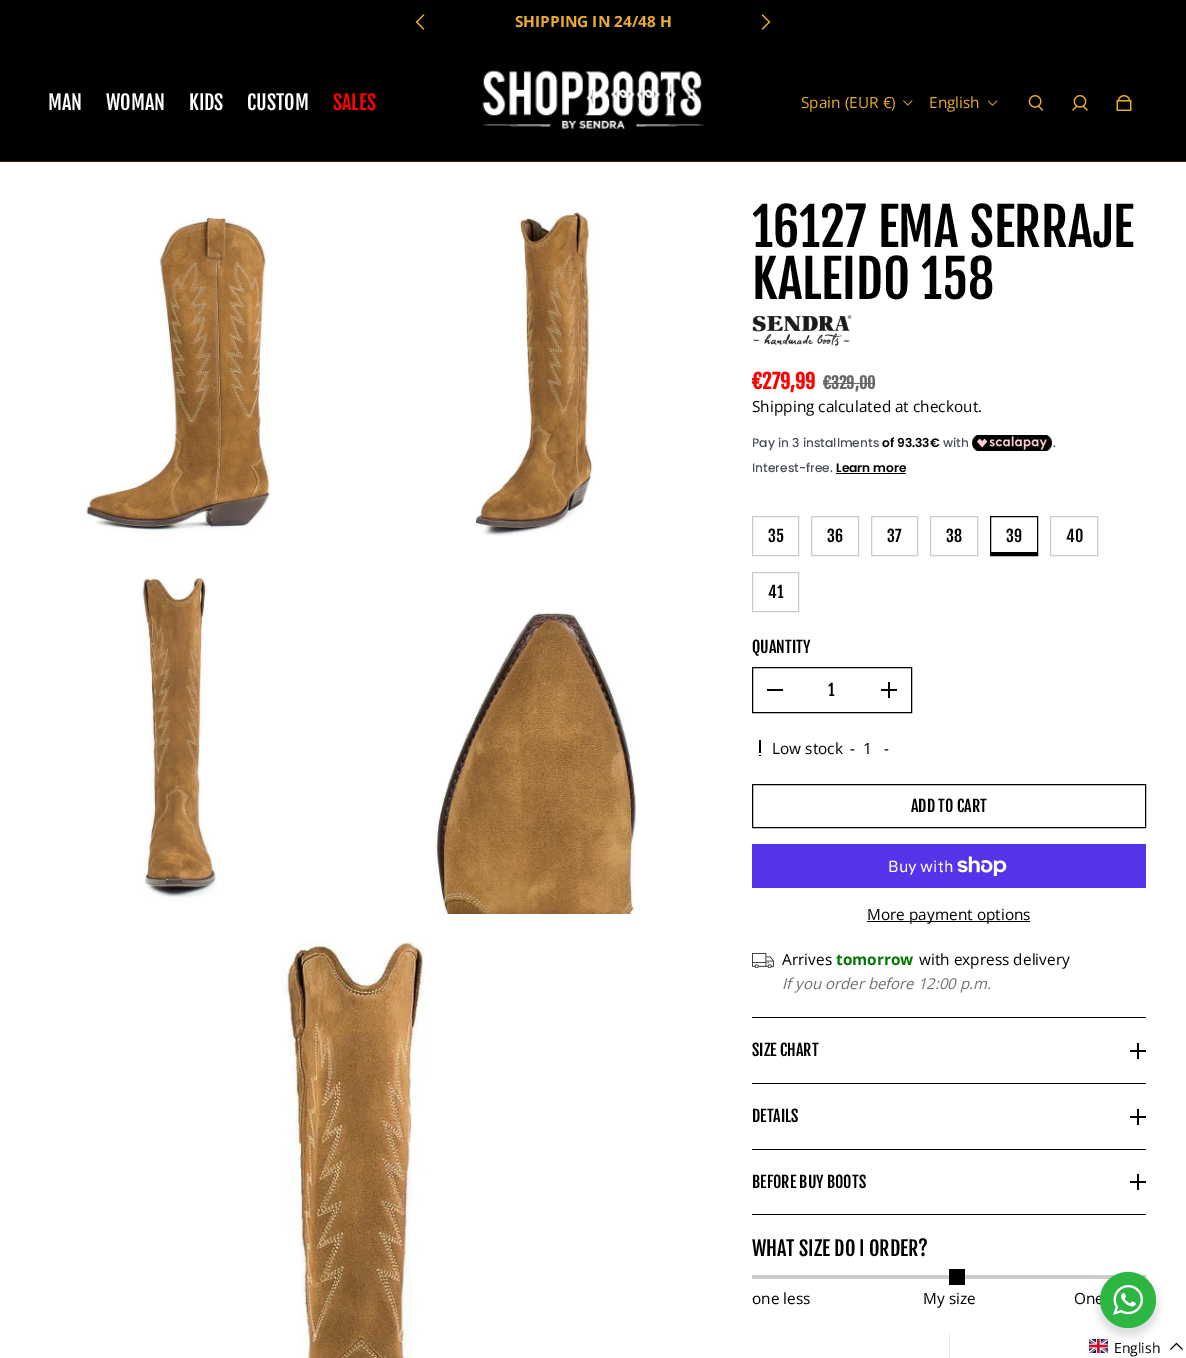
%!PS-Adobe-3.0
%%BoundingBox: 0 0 1186 1358
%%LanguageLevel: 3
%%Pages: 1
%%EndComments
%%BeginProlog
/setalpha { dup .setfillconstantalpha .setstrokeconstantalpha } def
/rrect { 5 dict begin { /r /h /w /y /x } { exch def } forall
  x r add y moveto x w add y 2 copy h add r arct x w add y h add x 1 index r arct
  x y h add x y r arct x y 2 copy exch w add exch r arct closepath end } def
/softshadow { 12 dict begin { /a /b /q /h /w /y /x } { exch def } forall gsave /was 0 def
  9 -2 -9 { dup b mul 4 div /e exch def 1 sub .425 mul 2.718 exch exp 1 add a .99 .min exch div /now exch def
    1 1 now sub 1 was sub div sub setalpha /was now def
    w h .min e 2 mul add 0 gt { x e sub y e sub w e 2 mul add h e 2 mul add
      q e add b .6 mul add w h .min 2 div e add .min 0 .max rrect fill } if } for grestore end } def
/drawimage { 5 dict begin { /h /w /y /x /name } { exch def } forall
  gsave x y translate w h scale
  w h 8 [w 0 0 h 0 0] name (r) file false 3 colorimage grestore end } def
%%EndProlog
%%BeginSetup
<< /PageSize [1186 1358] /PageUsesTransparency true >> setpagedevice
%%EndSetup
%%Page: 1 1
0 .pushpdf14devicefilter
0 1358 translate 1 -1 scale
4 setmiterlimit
1 setgray
0 0 1186 1358 rectfill
0 setgray
0 0 1186 161 rectfill
(images/1.raw) 415 14 10 16 drawimage
(images/2.raw) 761 14 10 16 drawimage
0.184 0.133 0.035 setrgbcolor
0 161 1186 1 rectfill
(images/3.raw) 482 70 222 60 drawimage
(images/4.raw) 903 100 10 6 drawimage
(images/5.raw) 988 100 10 6 drawimage
(images/6.raw) 1028 95 16 16 drawimage
(images/7.raw) 1072 95 16 16 drawimage
(images/8.raw) 1116 95 16 16 drawimage
(images/9.raw) 85 215 186 319 drawimage
(images/10.raw) 474 212 121 324 drawimage
(images/11.raw) 138 577 79 324 drawimage
(images/12.raw) 435 612 205 302 drawimage
(images/13.raw) 281 940 144 418 drawimage
(images/14.raw) 752 315 100 31 drawimage
0.4 setgray
823 383 52 1 rectfill
(images/15.raw) 972 435 80 16 drawimage
0 setgray
836 473 70 1 rectfill
0.8 setgray
752.5 516.5 46 39 rectstroke
811.5 516.5 47 39 rectstroke
871.5 516.5 46 39 rectstroke
930.5 516.5 47 39 rectstroke
0 setgray
990.5 516.5 47 39 rectstroke
990 552 48 3 rectfill
0.8 setgray
1050.5 516.5 47 39 rectstroke
752.5 572.5 46 39 rectstroke
0 setgray
752.5 667.5 159 45 rectstroke
767 689 16 2 rectfill
881 689 16 2 rectfill
888 682 2 16 rectfill
759 740 2 13 rectfill
759 755 2 1 rectfill
752.5 784.5 393 43 rectstroke
0.329 0.2 0.922 setrgbcolor
752 844 394 44 rectfill
(images/16.raw) 957 856 50 20 drawimage
0 setgray
867 921 163 1 rectfill
(images/17.raw) 752 953 22 15 drawimage
752 1017 394 1 rectfill
752 1083 394 1 rectfill
1130 1050 16 2 rectfill
1137 1043 2 16 rectfill
752 1149 394 1 rectfill
1130 1116 16 2 rectfill
1137 1109 2 16 rectfill
752 1214 394 1 rectfill
1130 1181 16 2 rectfill
1137 1174 2 16 rectfill
0.8 setgray
752 1275 394 4 rectfill
0 setgray
949 1269 16 16 rectfill
0.902 setgray
949 1334 1 24 rectfill
(images/19.raw) 1089 1339 19 14 drawimage
0 setgray
newpath 1182.5 1349.5 moveto 1176.5 1343.5 lineto 1170.5 1349.5 lineto stroke
1098 1276 60 60 30 4 0.14 softshadow
/OpenSans-Bold [15.4 0 0 -15.4 0 0] selectfont
0.918 0.675 0.173 setrgbcolor
515 27 moveto (SHIPPING IN 24/48 H) show
/FjallaOne-Regular [20 0 0 -20 0 0] selectfont
1 setgray
48 110 moveto (MAN) show
106 110 moveto (WOMAN) show
189 110 moveto (KIDS) show
247 110 moveto (CUSTOM) show
1 0 0 setrgbcolor
333 110 moveto (SALES) show
/OpenSans-Regular [15.4 0 0 -15.4 0 0] selectfont
0.918 0.675 0.173 setrgbcolor
801 108 moveto (Spain \(EUR €\)) show
929 108 moveto (English) show
/FjallaOne-Regular [52 0 0 -52 0 0] selectfont
0 setgray
752 247 moveto (16127 EMA SERRAJE) show
752 299 moveto (KALEIDO 158) show
/FjallaOne-Bold [20 0 0 -20 0 0] selectfont
1 0 0 setrgbcolor
752 389 moveto (€279,99) show
/FjallaOne-Bold [16 0 0 -16 0 0] selectfont
0.4 setgray
823 389 moveto (€329,00) show
/OpenSans-Regular [15.4 0 0 -15.4 0 0] selectfont
0 setgray
752 412 moveto (Shipping calculated at checkout.) show
/Poppins-Medium [12.25 0 0 -12.25 0 0] selectfont
0.29 0.302 0.353 setrgbcolor
752 447 moveto (Pay in 3 installments) show
/Poppins-SemiBold [12.25 0 0 -12.25 0 0] selectfont
0 setgray
882 447 moveto (of 93.33€) show
/Poppins-Medium [12.25 0 0 -12.25 0 0] selectfont
0.29 0.302 0.353 setrgbcolor
943 447 moveto (with) show
1053 447 moveto (.) show
752 472 moveto (Interest-free.) show
/Poppins-SemiBold [12.25 0 0 -12.25 0 0] selectfont
0 setgray
836 472 moveto (Learn more) show
/FjallaOne-Regular [16 0 0 -16 0 0] selectfont
768 542 moveto (35) show
827 542 moveto (36) show
887 542 moveto (37) show
946 542 moveto (38) show
1006 542 moveto (39) show
1066 542 moveto (40) show
768 598 moveto (41) show
752 653 moveto (QUANTITY) show
828 696 moveto (1) show
/OpenSans-Regular [15.4 0 0 -15.4 0 0] selectfont
772 754 moveto (Low stock) show
850 754 moveto (-) show
863 754 moveto (1) show
884 754 moveto (-) show
/FjallaOne-Regular [16 0 0 -16 0 0] selectfont
911 812 moveto (ADD TO CART) show
/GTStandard-Regular [16 0 0 -16 0 0] selectfont
1 setgray
888 872 moveto (Buy with) show
/OpenSans-Regular [15.4 0 0 -15.4 0 0] selectfont
0 setgray
867 920 moveto (More payment options) show
782 965 moveto (Arrives) show
/OpenSans-Bold [15.4 0 0 -15.4 0 0] selectfont
0 0.463 0 setrgbcolor
836 965 moveto (tomorrow) show
/OpenSans-Regular [15.4 0 0 -15.4 0 0] selectfont
0 setgray
919 965 moveto (with express delivery) show
/OpenSans-Italic [15 0 0 -15 0 0] selectfont
0.439 setgray
782 989 moveto (If you order before 12:00 p.m.) show
/FjallaOne-Regular [16 0 0 -16 0 0] selectfont
0 setgray
752 1056 moveto (SIZE CHART) show
752 1122 moveto (DETAILS) show
752 1188 moveto (BEFORE BUY BOOTS) show
/FjallaOne-Regular [20 0 0 -20 0 0] selectfont
752 1256 moveto (WHAT SIZE DO I ORDER?) show
/OpenSans-Regular [15.4 0 0 -15.4 0 0] selectfont
752 1304 moveto (one less) show
923 1304 moveto (My size) show
1074 1304 moveto (One) show
0.176 0.718 0.259 setrgbcolor
newpath 1128 1300 28 0 360 arc closepath fill
(images/18.raw) 1113 1285 30 30 drawimage
/OpenSans-Regular [14 0 0 -14 0 0] selectfont
0 setgray
1114 1353 moveto (English) show
.poppdf14devicefilter showpage
%%EOF
